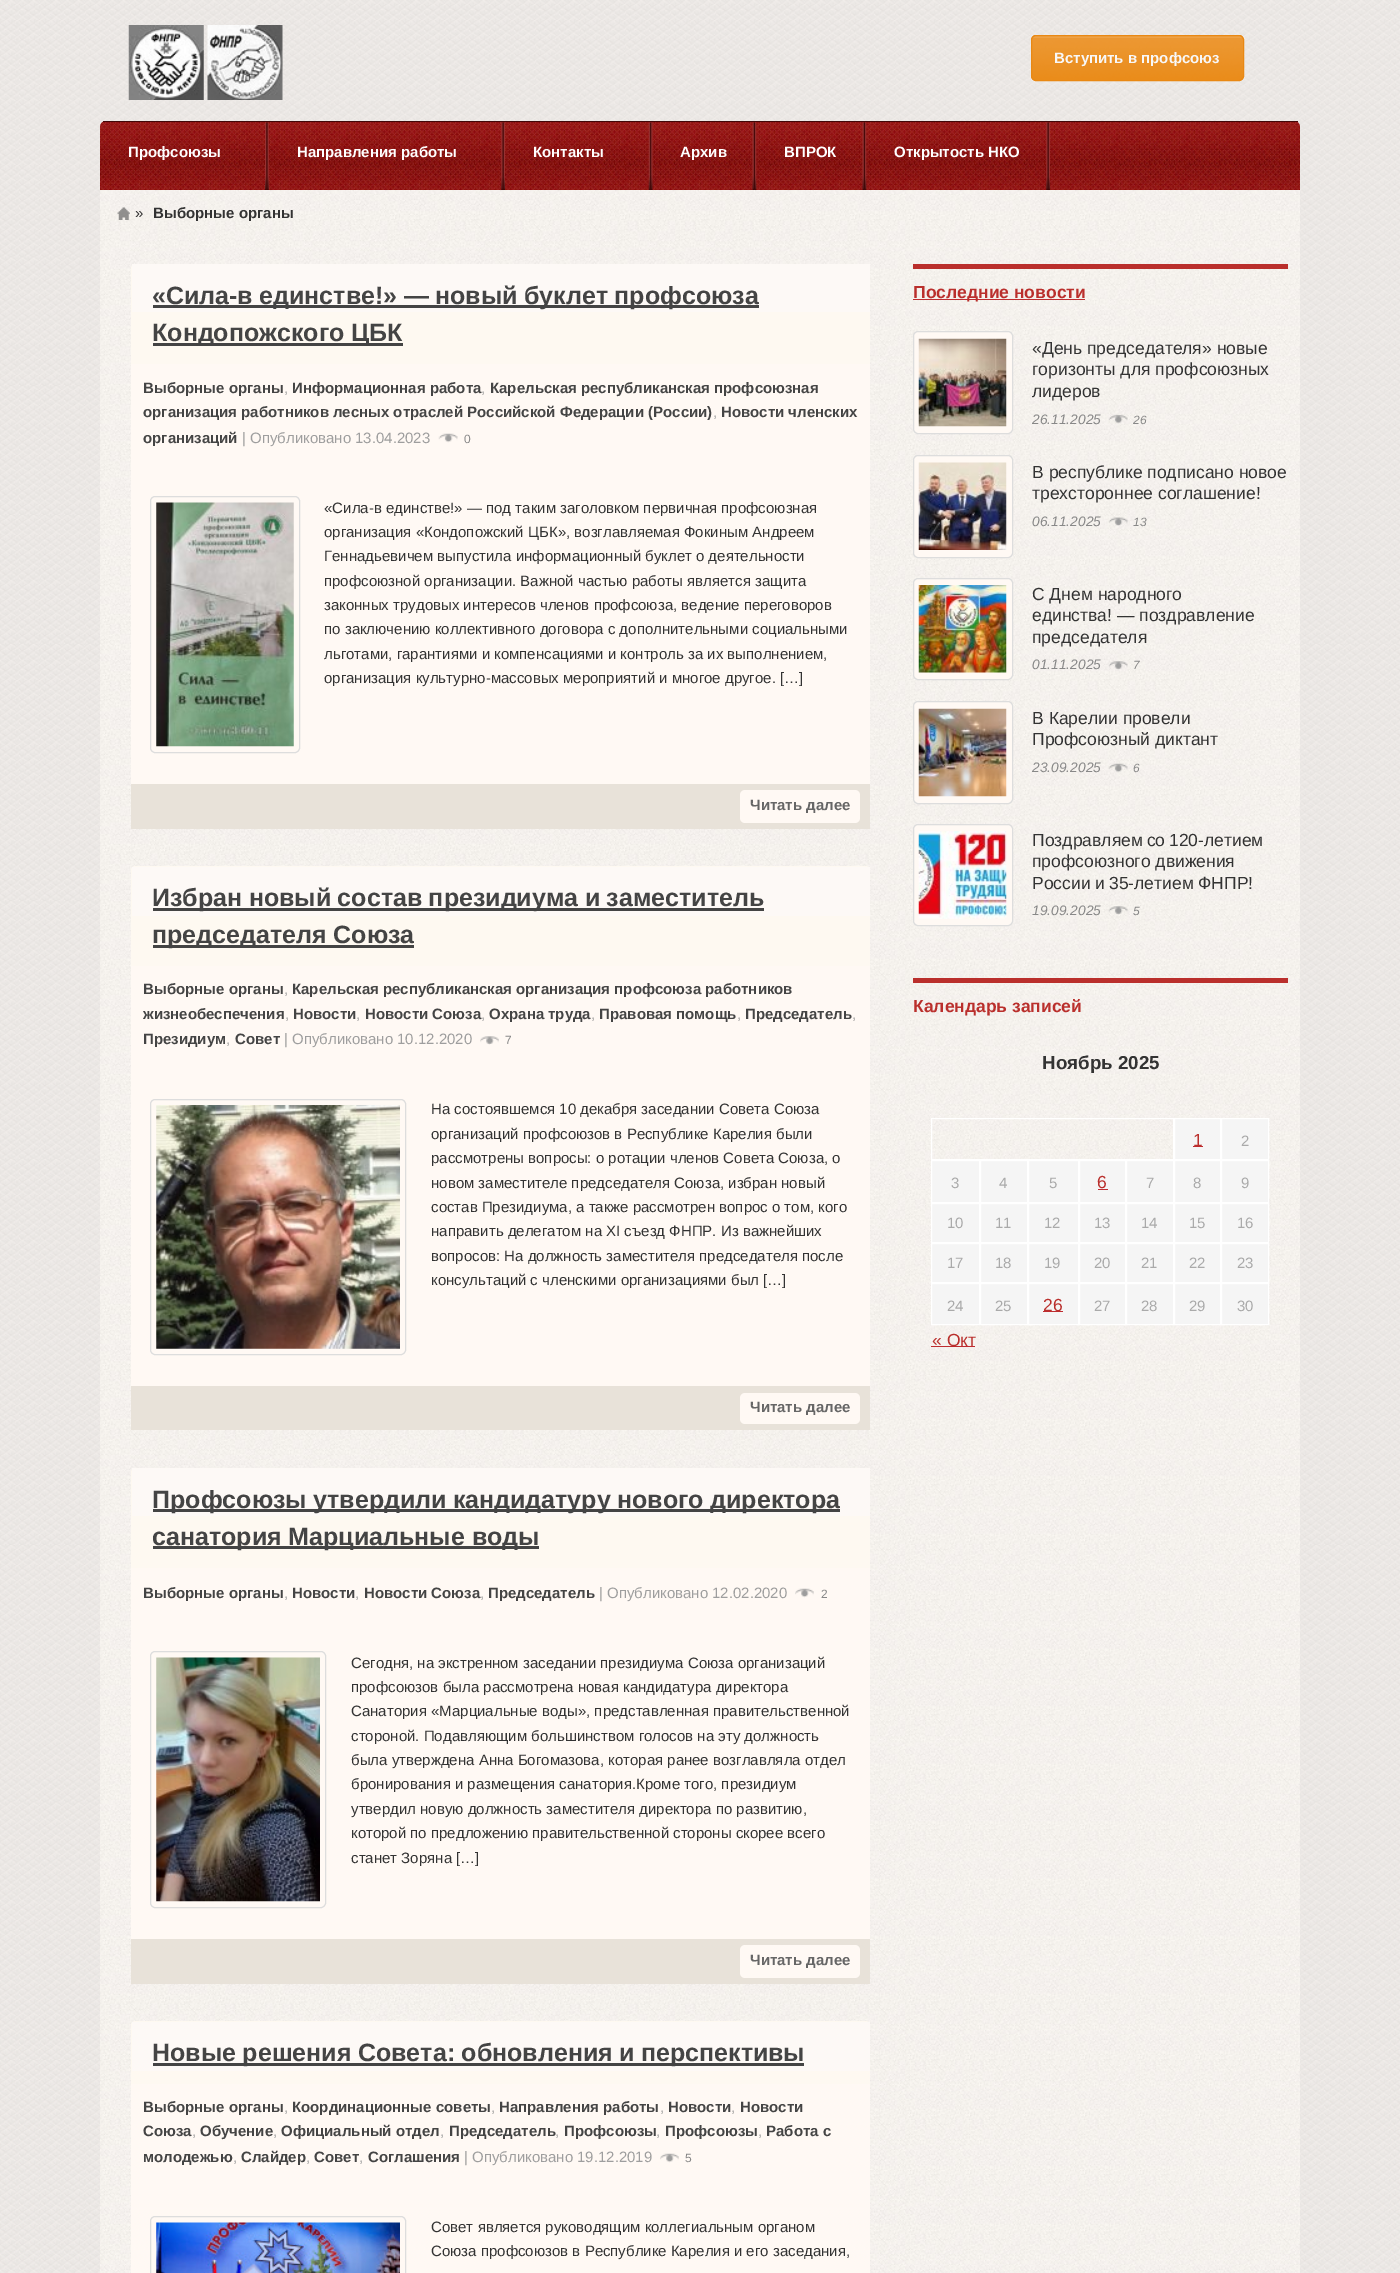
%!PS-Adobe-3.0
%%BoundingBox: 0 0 1400 2273
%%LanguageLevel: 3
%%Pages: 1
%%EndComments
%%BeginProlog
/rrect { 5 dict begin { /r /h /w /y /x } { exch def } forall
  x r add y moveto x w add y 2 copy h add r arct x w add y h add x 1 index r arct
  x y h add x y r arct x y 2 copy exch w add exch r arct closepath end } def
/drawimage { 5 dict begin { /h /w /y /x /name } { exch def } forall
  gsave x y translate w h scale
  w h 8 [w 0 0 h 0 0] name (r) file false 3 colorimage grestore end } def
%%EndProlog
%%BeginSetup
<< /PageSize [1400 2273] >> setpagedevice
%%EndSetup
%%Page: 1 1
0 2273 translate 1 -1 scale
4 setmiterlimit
1 setgray
0 0 1400 2273 rectfill
(images/1.raw) 0 0 1400 2273 drawimage
(images/2.raw) 128 25 76 75 drawimage
(images/3.raw) 207 25 76 75 drawimage
0.914 0.533 0.075 setrgbcolor
1031 35 213 46 5 rrect fill
(images/4.raw) 1031 36 213 45 drawimage
1031.5 35.5 212 45 4.5 rrect stroke
0.933 setgray
newpath 105 121 moveto 1295 121 lineto 1298 121 1300 123 1300 126 curveto 1300 190 lineto 100 190 lineto 100 126 lineto 100 123 102 121 105 121 curveto closepath fill
(images/5.raw) 100 121 1200 69 drawimage
0.259 0.031 0.031 setrgbcolor
103 121 1195 1 rectfill
(images/6.raw) 265 122 4 68 drawimage
(images/7.raw) 501 122 4 68 drawimage
(images/8.raw) 648 122 5 68 drawimage
(images/9.raw) 752 122 5 68 drawimage
(images/10.raw) 862 122 5 68 drawimage
(images/11.raw) 1046 122 4 68 drawimage
(images/12.raw) 100 190 1200 2083 drawimage
(images/13.raw) 117 207 13 13 drawimage
0.996 0.976 0.945 setrgbcolor
newpath 135 264 moveto 866 264 lineto 868 264 870 266 870 268 curveto 870 364 lineto 131 364 lineto 131 268 lineto 131 266 133 264 135 264 curveto closepath fill
0.992 0.976 0.965 setrgbcolor
132 264 738 48 rectfill
0.267 setgray
153 305 606 3 rectfill
153 343 250 3 rectfill
1 0.976 0.957 setrgbcolor
131 364 739 420 rectfill
(images/14.raw) 438 433 20 10 drawimage
0.867 setgray
150.5 496.5 149 256 4.5 rrect stroke
(images/15.raw) 156 502 138 245 drawimage
0.91 0.886 0.851 setrgbcolor
131 784 739 45 rectfill
1 0.976 0.957 setrgbcolor
740 790 120 33 5 rrect fill
0.996 0.976 0.945 setrgbcolor
newpath 135 866 moveto 866 866 lineto 868 866 870 868 870 870 curveto 870 966 lineto 131 966 lineto 131 870 lineto 131 868 133 866 135 866 curveto closepath fill
0.992 0.976 0.965 setrgbcolor
132 867 738 49 rectfill
0.267 setgray
153 908 611 3 rectfill
153 945 261 3 rectfill
1 0.976 0.957 setrgbcolor
131 966 739 420 rectfill
(images/16.raw) 480 1036 19 9 drawimage
0.867 setgray
150.5 1099.5 255 255 4.5 rrect stroke
(images/17.raw) 156 1105 244 244 drawimage
0.91 0.886 0.851 setrgbcolor
131 1386 739 44 rectfill
1 0.976 0.957 setrgbcolor
740 1393 120 31 5 rrect fill
0.996 0.976 0.945 setrgbcolor
newpath 135 1468 moveto 866 1468 lineto 868 1468 870 1470 870 1472 curveto 870 1568 lineto 131 1568 lineto 131 1472 lineto 131 1470 133 1468 135 1468 curveto closepath fill
0.992 0.976 0.965 setrgbcolor
132 1468 738 48 rectfill
0.267 setgray
153 1509 687 3 rectfill
153 1546 386 3 rectfill
1 0.976 0.957 setrgbcolor
131 1568 739 371 rectfill
(images/18.raw) 795 1588 19 10 drawimage
0.867 setgray
150.5 1651.5 175 256 4.5 rrect stroke
(images/19.raw) 156 1657 164 245 drawimage
0.91 0.886 0.851 setrgbcolor
131 1939 739 45 rectfill
1 0.976 0.957 setrgbcolor
740 1945 120 33 5 rrect fill
0.996 0.976 0.945 setrgbcolor
newpath 135 2021 moveto 866 2021 lineto 868 2021 870 2023 870 2025 curveto 870 2084 lineto 131 2084 lineto 131 2025 lineto 131 2023 133 2021 135 2021 curveto closepath fill
0.992 0.976 0.965 setrgbcolor
132 2022 738 49 rectfill
0.267 setgray
153 2063 651 3 rectfill
1 0.976 0.957 setrgbcolor
131 2084 739 189 rectfill
(images/18.raw) 660 2153 19 10 drawimage
0.867 setgray
150.5 2216.5 255 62 4.5 rrect stroke
(images/20.raw) 156 2222 244 51 drawimage
0.729 0.184 0.173 setrgbcolor
913 264 375 5 rectfill
0.745 0.173 0.188 setrgbcolor
913 299 172 1 rectfill
1 0.976 0.957 setrgbcolor
913.5 331.5 99 102 4.5 rrect gsave fill grestore
0.867 setgray
stroke
(images/21.raw) 918 338 89 89 drawimage
(images/22.raw) 1108 414 20 10 drawimage
1 0.976 0.957 setrgbcolor
913.5 455.5 99 102 4.5 rrect gsave fill grestore
0.867 setgray
stroke
(images/23.raw) 918 462 89 88 drawimage
(images/24.raw) 1108 517 20 9 drawimage
1 0.976 0.957 setrgbcolor
913.5 578.5 99 101 4.5 rrect gsave fill grestore
0.867 setgray
stroke
(images/25.raw) 918 585 89 88 drawimage
(images/26.raw) 1108 661 20 9 drawimage
1 0.976 0.957 setrgbcolor
913.5 701.5 99 102 4.5 rrect gsave fill grestore
0.867 setgray
stroke
(images/27.raw) 918 708 89 89 drawimage
(images/28.raw) 1108 763 20 10 drawimage
1 0.976 0.957 setrgbcolor
913.5 824.5 99 101 4.5 rrect gsave fill grestore
0.867 setgray
stroke
(images/29.raw) 918 831 89 88 drawimage
(images/30.raw) 1108 906 20 9 drawimage
0.729 0.184 0.173 setrgbcolor
913 978 375 5 rectfill
1 setgray
931.5 1118.5 242 41 rectstroke
0.961 setgray
newpath 1174.5 1118.5 moveto 1220.5 1118.5 lineto 1220.5 1159.5 lineto 1174.5 1159.5 lineto closepath gsave fill grestore
1 setgray
stroke
0.745 0.173 0.188 setrgbcolor
1193 1146 10 1 rectfill
0.961 setgray
newpath 1221.5 1118.5 moveto 1268.5 1118.5 lineto 1268.5 1159.5 lineto 1221.5 1159.5 lineto closepath gsave fill grestore
1 setgray
stroke
0.961 setgray
newpath 931.5 1160.5 moveto 979.5 1160.5 lineto 979.5 1202.5 lineto 931.5 1202.5 lineto closepath gsave fill grestore
1 setgray
stroke
0.961 setgray
newpath 980.5 1160.5 moveto 1027.5 1160.5 lineto 1027.5 1202.5 lineto 980.5 1202.5 lineto closepath gsave fill grestore
1 setgray
stroke
0.961 setgray
newpath 1028.5 1160.5 moveto 1078.5 1160.5 lineto 1078.5 1202.5 lineto 1028.5 1202.5 lineto closepath gsave fill grestore
1 setgray
stroke
0.961 setgray
newpath 1079.5 1160.5 moveto 1125.5 1160.5 lineto 1125.5 1202.5 lineto 1079.5 1202.5 lineto closepath gsave fill grestore
1 setgray
stroke
0.745 0.173 0.188 setrgbcolor
1098 1189 10 1 rectfill
0.961 setgray
newpath 1126.5 1160.5 moveto 1173.5 1160.5 lineto 1173.5 1202.5 lineto 1126.5 1202.5 lineto closepath gsave fill grestore
1 setgray
stroke
0.961 setgray
newpath 1174.5 1160.5 moveto 1220.5 1160.5 lineto 1220.5 1202.5 lineto 1174.5 1202.5 lineto closepath gsave fill grestore
1 setgray
stroke
0.961 setgray
newpath 1221.5 1160.5 moveto 1268.5 1160.5 lineto 1268.5 1202.5 lineto 1221.5 1202.5 lineto closepath gsave fill grestore
1 setgray
stroke
0.961 setgray
newpath 931.5 1203.5 moveto 979.5 1203.5 lineto 979.5 1242.5 lineto 931.5 1242.5 lineto closepath gsave fill grestore
1 setgray
stroke
0.961 setgray
newpath 980.5 1203.5 moveto 1027.5 1203.5 lineto 1027.5 1242.5 lineto 980.5 1242.5 lineto closepath gsave fill grestore
1 setgray
stroke
0.961 setgray
newpath 1028.5 1203.5 moveto 1078.5 1203.5 lineto 1078.5 1242.5 lineto 1028.5 1242.5 lineto closepath gsave fill grestore
1 setgray
stroke
0.961 setgray
newpath 1079.5 1203.5 moveto 1125.5 1203.5 lineto 1125.5 1242.5 lineto 1079.5 1242.5 lineto closepath gsave fill grestore
1 setgray
stroke
0.961 setgray
newpath 1126.5 1203.5 moveto 1173.5 1203.5 lineto 1173.5 1242.5 lineto 1126.5 1242.5 lineto closepath gsave fill grestore
1 setgray
stroke
0.961 setgray
newpath 1174.5 1203.5 moveto 1220.5 1203.5 lineto 1220.5 1242.5 lineto 1174.5 1242.5 lineto closepath gsave fill grestore
1 setgray
stroke
0.961 setgray
newpath 1221.5 1203.5 moveto 1268.5 1203.5 lineto 1268.5 1242.5 lineto 1221.5 1242.5 lineto closepath gsave fill grestore
1 setgray
stroke
0.961 setgray
newpath 931.5 1243.5 moveto 979.5 1243.5 lineto 979.5 1282.5 lineto 931.5 1282.5 lineto closepath gsave fill grestore
1 setgray
stroke
0.961 setgray
newpath 980.5 1243.5 moveto 1027.5 1243.5 lineto 1027.5 1282.5 lineto 980.5 1282.5 lineto closepath gsave fill grestore
1 setgray
stroke
0.961 setgray
newpath 1028.5 1243.5 moveto 1078.5 1243.5 lineto 1078.5 1282.5 lineto 1028.5 1282.5 lineto closepath gsave fill grestore
1 setgray
stroke
0.961 setgray
newpath 1079.5 1243.5 moveto 1125.5 1243.5 lineto 1125.5 1282.5 lineto 1079.5 1282.5 lineto closepath gsave fill grestore
1 setgray
stroke
0.961 setgray
newpath 1126.5 1243.5 moveto 1173.5 1243.5 lineto 1173.5 1282.5 lineto 1126.5 1282.5 lineto closepath gsave fill grestore
1 setgray
stroke
0.961 setgray
newpath 1174.5 1243.5 moveto 1220.5 1243.5 lineto 1220.5 1282.5 lineto 1174.5 1282.5 lineto closepath gsave fill grestore
1 setgray
stroke
0.961 setgray
newpath 1221.5 1243.5 moveto 1268.5 1243.5 lineto 1268.5 1282.5 lineto 1221.5 1282.5 lineto closepath gsave fill grestore
1 setgray
stroke
0.961 setgray
newpath 931.5 1283.5 moveto 979.5 1283.5 lineto 979.5 1324.5 lineto 931.5 1324.5 lineto closepath gsave fill grestore
1 setgray
stroke
0.961 setgray
newpath 980.5 1283.5 moveto 1027.5 1283.5 lineto 1027.5 1324.5 lineto 980.5 1324.5 lineto closepath gsave fill grestore
1 setgray
stroke
0.961 setgray
newpath 1028.5 1283.5 moveto 1078.5 1283.5 lineto 1078.5 1324.5 lineto 1028.5 1324.5 lineto closepath gsave fill grestore
1 setgray
stroke
0.745 0.173 0.188 setrgbcolor
1043 1311 20 1 rectfill
0.961 setgray
newpath 1079.5 1283.5 moveto 1125.5 1283.5 lineto 1125.5 1324.5 lineto 1079.5 1324.5 lineto closepath gsave fill grestore
1 setgray
stroke
0.961 setgray
newpath 1126.5 1283.5 moveto 1173.5 1283.5 lineto 1173.5 1324.5 lineto 1126.5 1324.5 lineto closepath gsave fill grestore
1 setgray
stroke
0.961 setgray
newpath 1174.5 1283.5 moveto 1220.5 1283.5 lineto 1220.5 1324.5 lineto 1174.5 1324.5 lineto closepath gsave fill grestore
1 setgray
stroke
0.961 setgray
newpath 1221.5 1283.5 moveto 1268.5 1283.5 lineto 1268.5 1324.5 lineto 1221.5 1324.5 lineto closepath gsave fill grestore
1 setgray
stroke
0.745 0.173 0.188 setrgbcolor
931 1346 44 1 rectfill
/LiberationSans-Bold [15 0 0 -15 0 0] selectfont
0.973 setgray
1054 63 moveto (Вступить в профсоюз) show
1 setgray
128 157 moveto (Профсоюзы) show
297 157 moveto (Направления работы) show
533 157 moveto (Контакты) show
680 157 moveto (Архив) show
784 157 moveto (ВПРОК) show
894 157 moveto (Открытость НКО) show
/LiberationSans-Regular [15 0 0 -15 0 0] selectfont
0.2 setgray
135 218 moveto (») show
/LiberationSans-Bold [15 0 0 -15 0 0] selectfont
153 218 moveto (Выборные органы) show
/LiberationSans-Bold [25 0 0 -25 0 0] selectfont
0.267 setgray
152 304 moveto -0.5 0 32 («Сила-в единстве!» — новый буклет профсоюза) widthshow
152 341 moveto (Кондопожского ЦБК) show
/LiberationSans-Bold [15 0 0 -15 0 0] selectfont
143 393 moveto (Выборные органы) show
/LiberationSans-Regular [15 0 0 -15 0 0] selectfont
0.62 setgray
284 393 moveto (,) show
/LiberationSans-Bold [15 0 0 -15 0 0] selectfont
0.267 setgray
292 393 moveto (Информационная работа) show
/LiberationSans-Regular [15 0 0 -15 0 0] selectfont
0.62 setgray
481 393 moveto (,) show
/LiberationSans-Bold [15 0 0 -15 0 0] selectfont
0.267 setgray
490 393 moveto (Карельская республиканская профсоюзная) show
143 417 moveto (организация работников лесных отраслей Российской Федерации \(России\)) show
/LiberationSans-Regular [15 0 0 -15 0 0] selectfont
0.62 setgray
713 417 moveto (,) show
/LiberationSans-Bold [15 0 0 -15 0 0] selectfont
0.267 setgray
721 417 moveto (Новости членских) show
143 443 moveto (организаций) show
/LiberationSans-Regular [15 0 0 -15 0 0] selectfont
0.62 setgray
242 443 moveto (| Опубликовано 13.04.2023) show
/LiberationSans-Regular [12 0 0 -12 0 0] selectfont
0.533 setgray
464 443 moveto (0) show
/LiberationSans-Regular [15 0 0 -15 0 0] selectfont
0.2 setgray
324 513 moveto («Сила-в единстве!» — под таким заголовком первичная профсоюзная) show
324 537 moveto (организация «Кондопожский ЦБК», возглавляемая Фокиным Андреем) show
324 561 moveto (Геннадьевичем выпустила информационный буклет о деятельности) show
324 586 moveto (профсоюзной организации. Важной частью работы является защита) show
324 610 moveto (законных трудовых интересов членов профсоюза, ведение переговоров) show
324 634 moveto (по заключению коллективного договора с дополнительными социальными) show
324 659 moveto (льготами, гарантиями и компенсациями и контроль за их выполнением,) show
324 683 moveto (организация культурно-массовых мероприятий и многое другое. […]) show
/LiberationSans-Bold [15 0 0 -15 0 0] selectfont
0.4 setgray
750 810 moveto (Читать далее) show
/LiberationSans-Bold [25 0 0 -25 0 0] selectfont
0.267 setgray
152 906 moveto -0.5 0 32 (Избран новый состав президиума и заместитель) widthshow
152 943 moveto (председателя Союза) show
/LiberationSans-Bold [15 0 0 -15 0 0] selectfont
143 994 moveto (Выборные органы) show
/LiberationSans-Regular [15 0 0 -15 0 0] selectfont
0.62 setgray
284 994 moveto (,) show
/LiberationSans-Bold [15 0 0 -15 0 0] selectfont
0.267 setgray
292 994 moveto (Карельская республиканская организация профсоюза работников) show
143 1019 moveto (жизнеобеспечения) show
/LiberationSans-Regular [15 0 0 -15 0 0] selectfont
0.62 setgray
285 1019 moveto (,) show
/LiberationSans-Bold [15 0 0 -15 0 0] selectfont
0.267 setgray
293 1019 moveto (Новости) show
/LiberationSans-Regular [15 0 0 -15 0 0] selectfont
0.62 setgray
356 1019 moveto (,) show
/LiberationSans-Bold [15 0 0 -15 0 0] selectfont
0.267 setgray
365 1019 moveto (Новости Союза) show
/LiberationSans-Regular [15 0 0 -15 0 0] selectfont
0.62 setgray
481 1019 moveto (,) show
/LiberationSans-Bold [15 0 0 -15 0 0] selectfont
0.267 setgray
489 1019 moveto (Охрана труда) show
/LiberationSans-Regular [15 0 0 -15 0 0] selectfont
0.62 setgray
591 1019 moveto (,) show
/LiberationSans-Bold [15 0 0 -15 0 0] selectfont
0.267 setgray
599 1019 moveto (Правовая помощь) show
/LiberationSans-Regular [15 0 0 -15 0 0] selectfont
0.62 setgray
737 1019 moveto (,) show
/LiberationSans-Bold [15 0 0 -15 0 0] selectfont
0.267 setgray
745 1019 moveto (Председатель) show
/LiberationSans-Regular [15 0 0 -15 0 0] selectfont
0.62 setgray
852 1019 moveto (,) show
/LiberationSans-Bold [15 0 0 -15 0 0] selectfont
0.267 setgray
143 1044 moveto (Президиум) show
/LiberationSans-Regular [15 0 0 -15 0 0] selectfont
0.62 setgray
226 1044 moveto (,) show
/LiberationSans-Bold [15 0 0 -15 0 0] selectfont
0.267 setgray
235 1044 moveto (Совет) show
/LiberationSans-Regular [15 0 0 -15 0 0] selectfont
0.62 setgray
284 1044 moveto (| Опубликовано 10.12.2020) show
/LiberationSans-Regular [12 0 0 -12 0 0] selectfont
0.533 setgray
505 1044 moveto (7) show
/LiberationSans-Regular [15 0 0 -15 0 0] selectfont
0.2 setgray
431 1114 moveto (На состоявшемся 10 декабря заседании Совета Союза) show
431 1139 moveto (организаций профсоюзов в Республике Карелия были) show
431 1163 moveto (рассмотрены вопросы: о ротации членов Совета Союза, о) show
431 1188 moveto (новом заместителе председателя Союза, избран новый) show
431 1212 moveto (состав Президиума, а также рассмотрен вопрос о том, кого) show
431 1236 moveto (направить делегатом на XI съезд ФНПР. Из важнейших) show
431 1261 moveto (вопросов: На должность заместителя председателя после) show
431 1285 moveto (консультаций с членскими организациями был […]) show
/LiberationSans-Bold [15 0 0 -15 0 0] selectfont
0.4 setgray
750 1412 moveto (Читать далее) show
/LiberationSans-Bold [25 0 0 -25 0 0] selectfont
0.267 setgray
152 1508 moveto -0.5 0 32 (Профсоюзы утвердили кандидатуру нового директора) widthshow
152 1545 moveto (санатория Марциальные воды) show
/LiberationSans-Bold [15 0 0 -15 0 0] selectfont
143 1598 moveto (Выборные органы) show
/LiberationSans-Regular [15 0 0 -15 0 0] selectfont
0.62 setgray
284 1598 moveto (,) show
/LiberationSans-Bold [15 0 0 -15 0 0] selectfont
0.267 setgray
292 1598 moveto (Новости) show
/LiberationSans-Regular [15 0 0 -15 0 0] selectfont
0.62 setgray
355 1598 moveto (,) show
/LiberationSans-Bold [15 0 0 -15 0 0] selectfont
0.267 setgray
364 1598 moveto (Новости Союза) show
/LiberationSans-Regular [15 0 0 -15 0 0] selectfont
0.62 setgray
480 1598 moveto (,) show
/LiberationSans-Bold [15 0 0 -15 0 0] selectfont
0.267 setgray
488 1598 moveto (Председатель) show
/LiberationSans-Regular [15 0 0 -15 0 0] selectfont
0.62 setgray
599 1598 moveto (| Опубликовано 12.02.2020) show
/LiberationSans-Regular [12 0 0 -12 0 0] selectfont
0.533 setgray
821 1598 moveto (2) show
/LiberationSans-Regular [15 0 0 -15 0 0] selectfont
0.2 setgray
351 1668 moveto (Сегодня, на экстренном заседании президиума Союза организаций) show
351 1692 moveto (профсоюзов была рассмотрена новая кандидатура директора) show
351 1716 moveto (Санатория «Марциальные воды», представленная правительственной) show
351 1741 moveto (стороной. Подавляющим большинством голосов на эту должность) show
351 1765 moveto (была утверждена Анна Богомазова, которая ранее возглавляла отдел) show
351 1789 moveto (бронирования и размещения санатория.Кроме того, президиум) show
351 1814 moveto (утвердил новую должность заместителя директора по развитию,) show
351 1838 moveto (которой по предложению правительственной стороны скорее всего) show
351 1863 moveto (станет Зоряна […]) show
/LiberationSans-Bold [15 0 0 -15 0 0] selectfont
0.4 setgray
750 1965 moveto (Читать далее) show
/LiberationSans-Bold [25 0 0 -25 0 0] selectfont
0.267 setgray
152 2061 moveto -0.5 0 32 (Новые решения Совета: обновления и перспективы) widthshow
/LiberationSans-Bold [15 0 0 -15 0 0] selectfont
143 2112 moveto (Выборные органы) show
/LiberationSans-Regular [15 0 0 -15 0 0] selectfont
0.62 setgray
284 2112 moveto (,) show
/LiberationSans-Bold [15 0 0 -15 0 0] selectfont
0.267 setgray
292 2112 moveto (Координационные советы) show
/LiberationSans-Regular [15 0 0 -15 0 0] selectfont
0.62 setgray
491 2112 moveto (,) show
/LiberationSans-Bold [15 0 0 -15 0 0] selectfont
0.267 setgray
499 2112 moveto (Направления работы) show
/LiberationSans-Regular [15 0 0 -15 0 0] selectfont
0.62 setgray
660 2112 moveto (,) show
/LiberationSans-Bold [15 0 0 -15 0 0] selectfont
0.267 setgray
668 2112 moveto (Новости) show
/LiberationSans-Regular [15 0 0 -15 0 0] selectfont
0.62 setgray
731 2112 moveto (,) show
/LiberationSans-Bold [15 0 0 -15 0 0] selectfont
0.267 setgray
740 2112 moveto (Новости) show
143 2136 moveto (Союза) show
/LiberationSans-Regular [15 0 0 -15 0 0] selectfont
0.62 setgray
192 2136 moveto (,) show
/LiberationSans-Bold [15 0 0 -15 0 0] selectfont
0.267 setgray
200 2136 moveto (Обучение) show
/LiberationSans-Regular [15 0 0 -15 0 0] selectfont
0.62 setgray
273 2136 moveto (,) show
/LiberationSans-Bold [15 0 0 -15 0 0] selectfont
0.267 setgray
281 2136 moveto (Официальный отдел) show
/LiberationSans-Regular [15 0 0 -15 0 0] selectfont
0.62 setgray
440 2136 moveto (,) show
/LiberationSans-Bold [15 0 0 -15 0 0] selectfont
0.267 setgray
449 2136 moveto (Председатель) show
/LiberationSans-Regular [15 0 0 -15 0 0] selectfont
0.62 setgray
555 2136 moveto (,) show
/LiberationSans-Bold [15 0 0 -15 0 0] selectfont
0.267 setgray
564 2136 moveto (Профсоюзы) show
/LiberationSans-Regular [15 0 0 -15 0 0] selectfont
0.62 setgray
656 2136 moveto (,) show
/LiberationSans-Bold [15 0 0 -15 0 0] selectfont
0.267 setgray
665 2136 moveto (Профсоюзы) show
/LiberationSans-Regular [15 0 0 -15 0 0] selectfont
0.62 setgray
758 2136 moveto (,) show
/LiberationSans-Bold [15 0 0 -15 0 0] selectfont
0.267 setgray
766 2136 moveto (Работа с) show
143 2162 moveto (молодежью) show
/LiberationSans-Regular [15 0 0 -15 0 0] selectfont
0.62 setgray
233 2162 moveto (,) show
/LiberationSans-Bold [15 0 0 -15 0 0] selectfont
0.267 setgray
241 2162 moveto (Слайдер) show
/LiberationSans-Regular [15 0 0 -15 0 0] selectfont
0.62 setgray
306 2162 moveto (,) show
/LiberationSans-Bold [15 0 0 -15 0 0] selectfont
0.267 setgray
314 2162 moveto (Совет) show
/LiberationSans-Regular [15 0 0 -15 0 0] selectfont
0.62 setgray
359 2162 moveto (,) show
/LiberationSans-Bold [15 0 0 -15 0 0] selectfont
0.267 setgray
368 2162 moveto (Соглашения) show
/LiberationSans-Regular [15 0 0 -15 0 0] selectfont
0.62 setgray
464 2162 moveto (| Опубликовано 19.12.2019) show
/LiberationSans-Regular [12 0 0 -12 0 0] selectfont
0.533 setgray
685 2162 moveto (5) show
/LiberationSans-Regular [15 0 0 -15 0 0] selectfont
0.2 setgray
431 2232 moveto (Совет является руководящим коллегиальным органом) show
431 2256 moveto (Союза профсоюзов в Республике Карелия и его заседания,) show
/LiberationSans-Bold [17.5 0 0 -17.5 0 0] selectfont
0.729 0.184 0.173 setrgbcolor
913 298 moveto (Последние новости) show
/LiberationSans-Regular [17.5 0 0 -17.5 0 0] selectfont
0.2 setgray
1032 354 moveto («День председателя» новые) show
1032 375 moveto (горизонты для профсоюзных) show
1032 397 moveto (лидеров) show
/LiberationSans-Italic [13.75 0 0 -13.75 0 0] selectfont
0.533 setgray
1032 424 moveto (26.11.2025) show
/LiberationSans-Italic [12 0 0 -12 0 0] selectfont
1133 424 moveto (26) show
/LiberationSans-Regular [17.5 0 0 -17.5 0 0] selectfont
0.2 setgray
1032 478 moveto (В республике подписано новое) show
1032 499 moveto (трехстороннее соглашение!) show
/LiberationSans-Italic [13.75 0 0 -13.75 0 0] selectfont
0.533 setgray
1032 526 moveto (06.11.2025) show
/LiberationSans-Italic [12 0 0 -12 0 0] selectfont
1133 526 moveto (13) show
/LiberationSans-Regular [17.5 0 0 -17.5 0 0] selectfont
0.2 setgray
1032 600 moveto (С Днем народного) show
1032 621 moveto (единства! — поздравление) show
1032 643 moveto (председателя) show
/LiberationSans-Italic [13.75 0 0 -13.75 0 0] selectfont
0.533 setgray
1032 669 moveto (01.11.2025) show
/LiberationSans-Italic [12 0 0 -12 0 0] selectfont
1133 669 moveto (7) show
/LiberationSans-Regular [17.5 0 0 -17.5 0 0] selectfont
0.2 setgray
1032 724 moveto (В Карелии провели) show
1032 745 moveto (Профсоюзный диктант) show
/LiberationSans-Italic [13.75 0 0 -13.75 0 0] selectfont
0.533 setgray
1032 772 moveto (23.09.2025) show
/LiberationSans-Italic [12 0 0 -12 0 0] selectfont
1133 772 moveto (6) show
/LiberationSans-Regular [17.5 0 0 -17.5 0 0] selectfont
0.2 setgray
1032 846 moveto -1 0 32 (Поздравляем со 120-летием) widthshow
1032 867 moveto (профсоюзного движения) show
1032 889 moveto -0.5 0 32 (России и 35-летием ФНПР!) widthshow
/LiberationSans-Italic [13.75 0 0 -13.75 0 0] selectfont
0.533 setgray
1032 915 moveto (19.09.2025) show
/LiberationSans-Italic [12 0 0 -12 0 0] selectfont
1133 915 moveto (5) show
/LiberationSans-Bold [17.5 0 0 -17.5 0 0] selectfont
0.729 0.184 0.173 setrgbcolor
913 1012 moveto (Календарь записей) show
/LiberationSans-Bold [18.75 0 0 -18.75 0 0] selectfont
0.2 setgray
1042 1069 moveto (Ноябрь 2025) show
/LiberationSans-Regular [17.5 0 0 -17.5 0 0] selectfont
0.729 0.184 0.173 setrgbcolor
1193 1146 moveto (1) show
/LiberationSans-Regular [15 0 0 -15 0 0] selectfont
0.667 setgray
1241 1146 moveto (2) show
951 1188 moveto (3) show
999 1188 moveto (4) show
1049 1188 moveto (5) show
/LiberationSans-Regular [17.5 0 0 -17.5 0 0] selectfont
0.729 0.184 0.173 setrgbcolor
1097 1188 moveto (6) show
/LiberationSans-Regular [15 0 0 -15 0 0] selectfont
0.667 setgray
1146 1188 moveto (7) show
1193 1188 moveto (8) show
1241 1188 moveto (9) show
947 1228 moveto (10) show
995 1228 moveto (11) show
1044 1228 moveto (12) show
1094 1228 moveto (13) show
1141 1228 moveto (14) show
1189 1228 moveto (15) show
1237 1228 moveto (16) show
947 1268 moveto (17) show
995 1268 moveto (18) show
1044 1268 moveto (19) show
1094 1268 moveto (20) show
1141 1268 moveto (21) show
1189 1268 moveto (22) show
1237 1268 moveto (23) show
947 1311 moveto (24) show
995 1311 moveto (25) show
/LiberationSans-Regular [17.5 0 0 -17.5 0 0] selectfont
0.729 0.184 0.173 setrgbcolor
1043 1311 moveto (26) show
/LiberationSans-Regular [15 0 0 -15 0 0] selectfont
0.667 setgray
1094 1311 moveto (27) show
1141 1311 moveto (28) show
1189 1311 moveto (29) show
1237 1311 moveto (30) show
/LiberationSans-Regular [17.5 0 0 -17.5 0 0] selectfont
0.729 0.184 0.173 setrgbcolor
932 1346 moveto (« Окт) show
showpage
%%EOF
